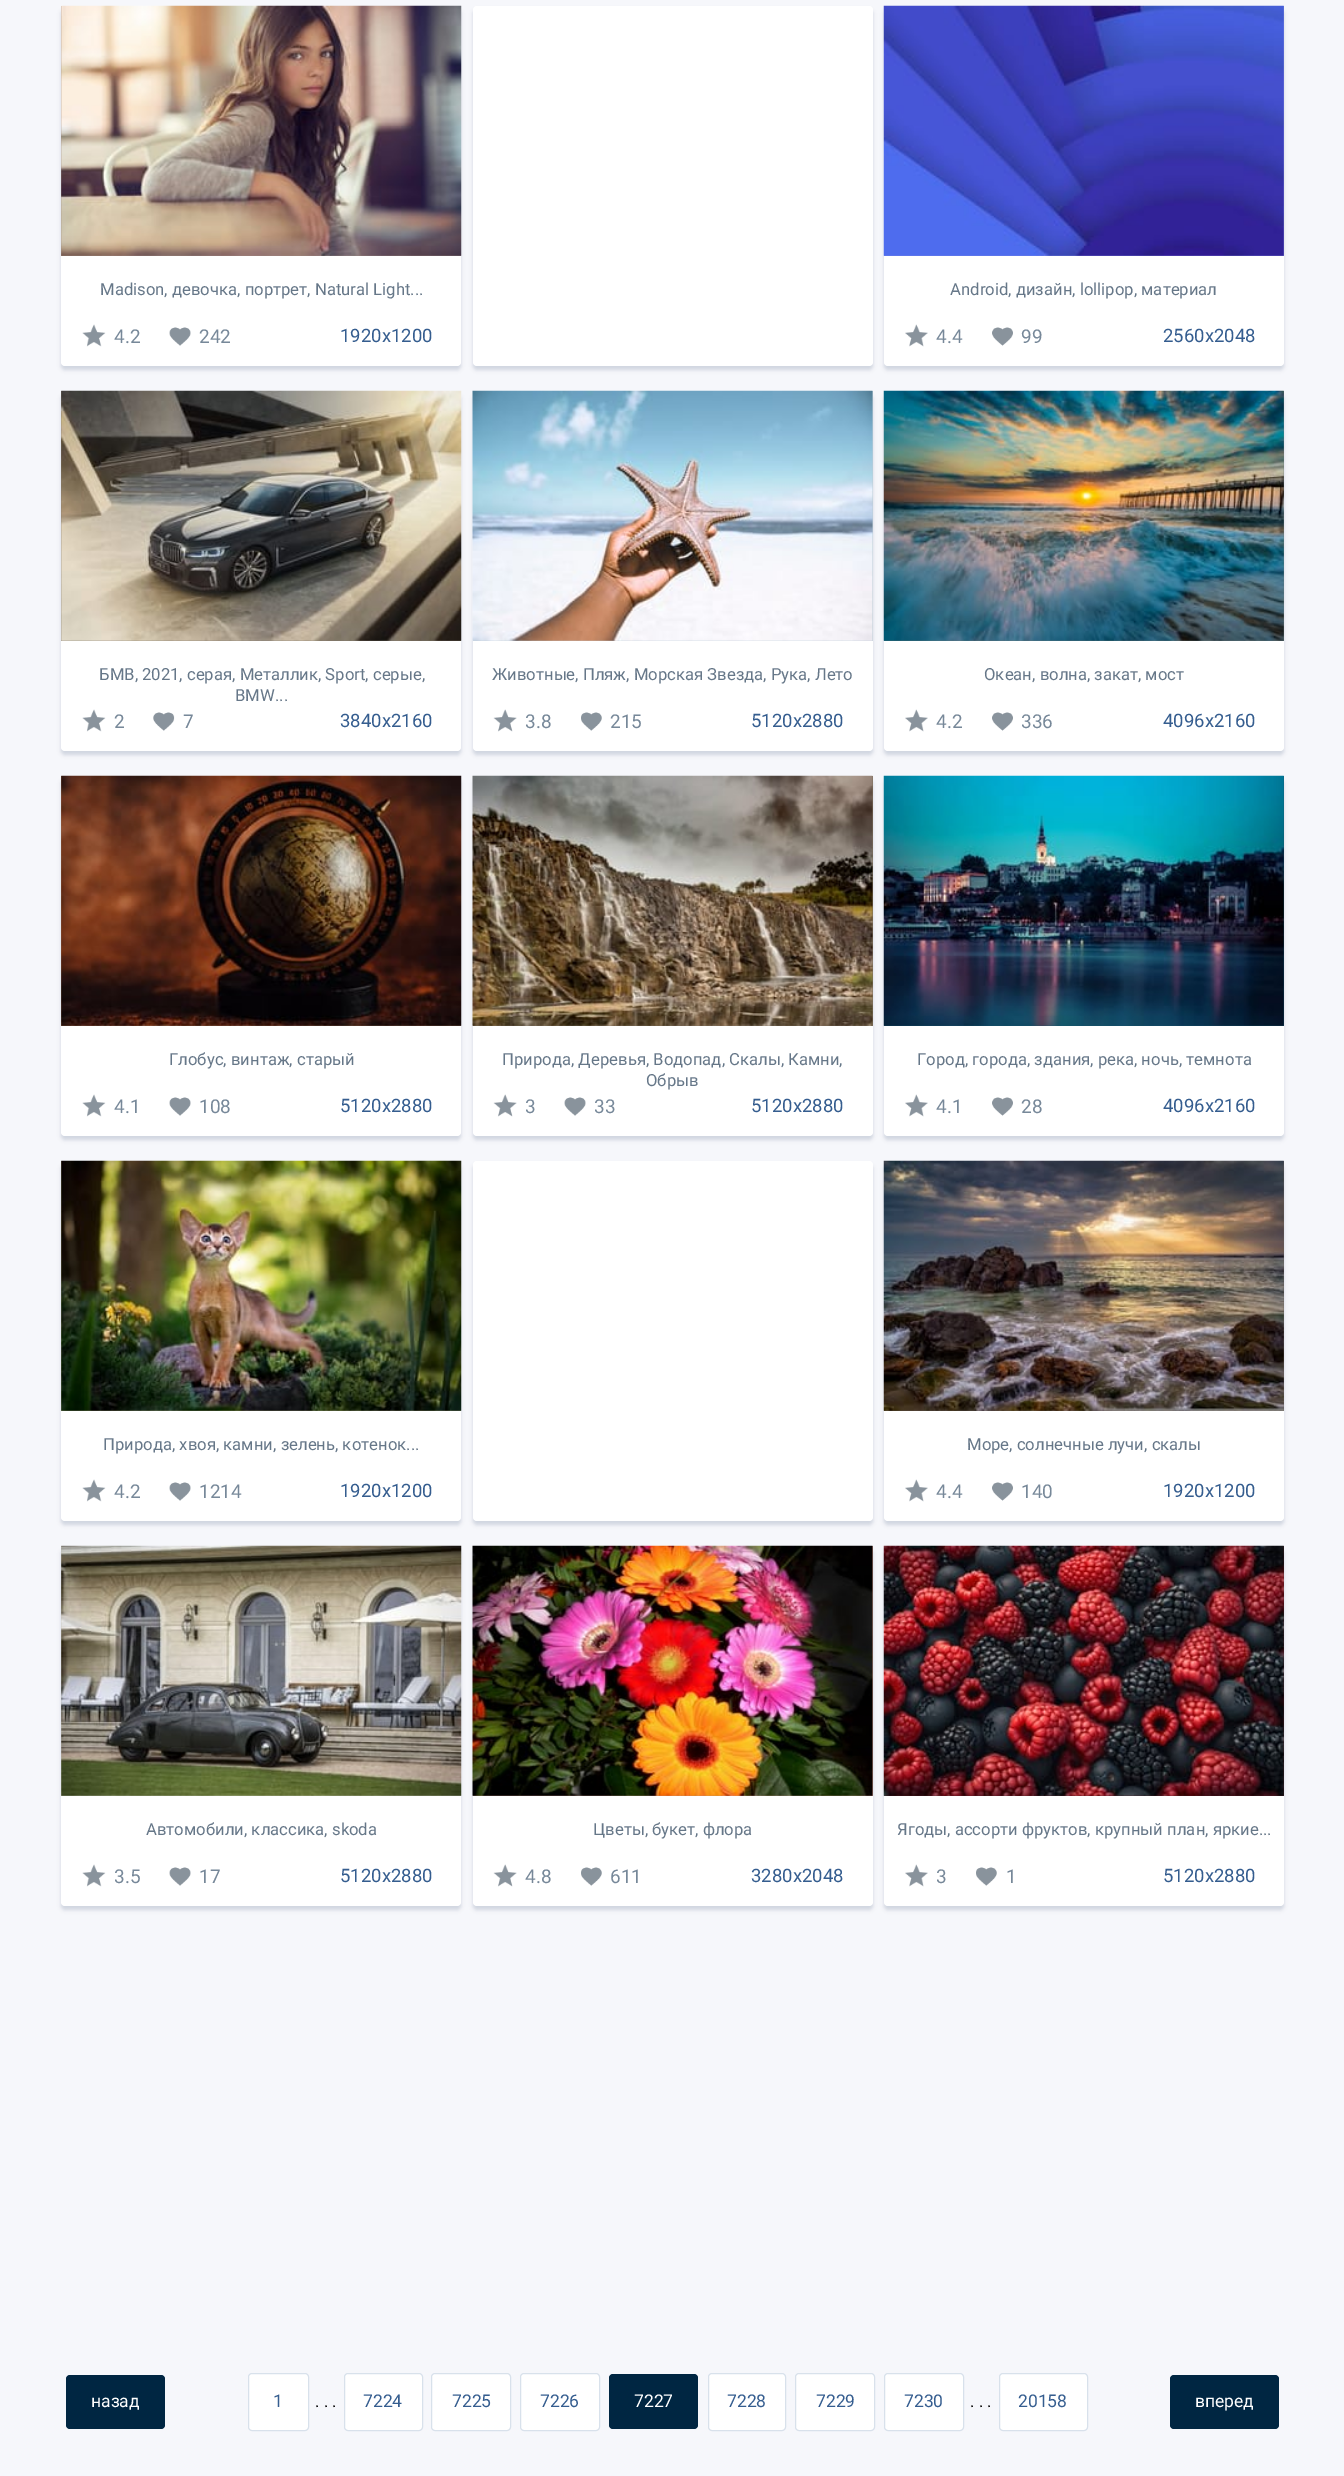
%!PS-Adobe-3.0
%%BoundingBox: 0 0 1344 2476
%%LanguageLevel: 3
%%Pages: 1
%%EndComments
%%BeginProlog
/setalpha { dup .setfillconstantalpha .setstrokeconstantalpha } def
/rrect { 5 dict begin { /r /h /w /y /x } { exch def } forall
  x r add y moveto x w add y 2 copy h add r arct x w add y h add x 1 index r arct
  x y h add x y r arct x y 2 copy exch w add exch r arct closepath end } def
/softshadow { 12 dict begin { /a /b /q /h /w /y /x } { exch def } forall gsave /was 0 def
  9 -2 -9 { dup b mul 4 div /e exch def 1 sub .425 mul 2.718 exch exp 1 add a .99 .min exch div /now exch def
    1 1 now sub 1 was sub div sub setalpha /was now def
    w h .min e 2 mul add 0 gt { x e sub y e sub w e 2 mul add h e 2 mul add
      q e add b .6 mul add w h .min 2 div e add .min 0 .max rrect fill } if } for grestore end } def
/drawimage { 5 dict begin { /h /w /y /x /name } { exch def } forall
  gsave x y translate w h scale
  w h 8 [w 0 0 h 0 0] name (r) file false 3 colorimage grestore end } def
%%EndProlog
%%BeginSetup
<< /PageSize [1344 2476] /PageUsesTransparency true >> setpagedevice
%%EndSetup
%%Page: 1 1
0 .pushpdf14devicefilter
0 2476 translate 1 -1 scale
4 setmiterlimit
0.965 0.969 0.984 setrgbcolor
0 0 1344 2476 rectfill
0.216 0.314 0.431 setrgbcolor
61 10 400 360 4 2 0.2 softshadow
1 setgray
61 6 400 360 4 rrect fill
0.62 0.545 0.51 setrgbcolor
61 6 400 250 rectfill
(images/1.raw) 61 5 401 251 drawimage
(images/2.raw) 82 324 24 23 drawimage
(images/3.raw) 169 327 22 19 drawimage
0.216 0.314 0.431 setrgbcolor
473 10 400 360 4 2 0.2 softshadow
1 setgray
473 6 400 360 4 rrect fill
0.216 0.314 0.431 setrgbcolor
884 10 400 360 4 2 0.2 softshadow
1 setgray
884 6 400 360 4 rrect fill
0.537 0.565 0.878 setrgbcolor
884 6 400 250 rectfill
(images/4.raw) 883 5 401 251 drawimage
(images/5.raw) 905 324 23 23 drawimage
(images/6.raw) 992 327 21 19 drawimage
0.216 0.314 0.431 setrgbcolor
61 395 400 360 4 2 0.2 softshadow
1 setgray
61 391 400 360 4 rrect fill
0.502 0.471 0.424 setrgbcolor
61 391 400 250 rectfill
(images/7.raw) 61 390 401 251 drawimage
(images/2.raw) 82 709 24 23 drawimage
(images/8.raw) 153 712 22 19 drawimage
0.216 0.314 0.431 setrgbcolor
473 395 400 360 4 2 0.2 softshadow
1 setgray
473 391 400 360 4 rrect fill
0.737 0.8 0.839 setrgbcolor
473 391 400 250 rectfill
(images/9.raw) 472 390 401 251 drawimage
(images/10.raw) 493 709 24 23 drawimage
(images/11.raw) 581 712 21 19 drawimage
0.216 0.314 0.431 setrgbcolor
884 395 400 360 4 2 0.2 softshadow
1 setgray
884 391 400 360 4 rrect fill
0.416 0.478 0.467 setrgbcolor
884 391 400 250 rectfill
(images/12.raw) 883 390 401 251 drawimage
(images/5.raw) 905 709 23 23 drawimage
(images/6.raw) 992 712 21 19 drawimage
0.216 0.314 0.431 setrgbcolor
61 780 400 360 4 2 0.2 softshadow
1 setgray
61 776 400 360 4 rrect fill
0.569 0.435 0.337 setrgbcolor
61 776 400 250 rectfill
(images/13.raw) 61 775 401 251 drawimage
(images/2.raw) 82 1094 24 23 drawimage
(images/3.raw) 169 1097 22 19 drawimage
0.216 0.314 0.431 setrgbcolor
473 780 400 360 4 2 0.2 softshadow
1 setgray
473 776 400 360 4 rrect fill
0.49 0.435 0.361 setrgbcolor
473 776 400 250 rectfill
(images/14.raw) 472 775 401 251 drawimage
(images/10.raw) 493 1094 24 23 drawimage
(images/3.raw) 564 1097 22 19 drawimage
0.216 0.314 0.431 setrgbcolor
884 780 400 360 4 2 0.2 softshadow
1 setgray
884 776 400 360 4 rrect fill
0.098 0.333 0.42 setrgbcolor
884 776 400 250 rectfill
(images/15.raw) 883 775 401 251 drawimage
(images/5.raw) 905 1094 23 23 drawimage
(images/6.raw) 992 1097 21 19 drawimage
0.216 0.314 0.431 setrgbcolor
61 1165 400 360 4 2 0.2 softshadow
1 setgray
61 1161 400 360 4 rrect fill
0.647 0.651 0.486 setrgbcolor
61 1161 400 250 rectfill
(images/16.raw) 61 1160 401 251 drawimage
(images/2.raw) 82 1479 24 23 drawimage
(images/3.raw) 169 1482 22 19 drawimage
0.216 0.314 0.431 setrgbcolor
473 1165 400 360 4 2 0.2 softshadow
1 setgray
473 1161 400 360 4 rrect fill
0.216 0.314 0.431 setrgbcolor
884 1165 400 360 4 2 0.2 softshadow
1 setgray
884 1161 400 360 4 rrect fill
0.412 0.369 0.345 setrgbcolor
884 1161 400 250 rectfill
(images/17.raw) 883 1160 401 251 drawimage
(images/5.raw) 905 1479 23 23 drawimage
(images/6.raw) 992 1482 21 19 drawimage
0.216 0.314 0.431 setrgbcolor
61 1550 400 360 4 2 0.2 softshadow
1 setgray
61 1546 400 360 4 rrect fill
0.741 0.741 0.702 setrgbcolor
61 1546 400 250 rectfill
(images/18.raw) 61 1545 401 251 drawimage
(images/2.raw) 82 1864 24 23 drawimage
(images/3.raw) 169 1867 22 19 drawimage
0.216 0.314 0.431 setrgbcolor
473 1550 400 360 4 2 0.2 softshadow
1 setgray
473 1546 400 360 4 rrect fill
0.729 0.545 0.498 setrgbcolor
473 1546 400 250 rectfill
(images/19.raw) 472 1545 401 251 drawimage
(images/10.raw) 493 1864 24 23 drawimage
(images/11.raw) 581 1867 21 19 drawimage
0.216 0.314 0.431 setrgbcolor
884 1550 400 360 4 2 0.2 softshadow
1 setgray
884 1546 400 360 4 rrect fill
0.322 0.129 0.153 setrgbcolor
884 1546 400 250 rectfill
(images/20.raw) 883 1545 401 251 drawimage
(images/5.raw) 905 1864 23 23 drawimage
(images/11.raw) 976 1867 21 19 drawimage
0 0.149 0.259 setrgbcolor
66 2375 99 54 4 rrect fill
1 setgray
248.5 2373.5 60 57 3.5 rrect gsave fill grestore
0.847 0.882 0.922 setrgbcolor
stroke
1 setgray
344.5 2373.5 78 57 3.5 rrect gsave fill grestore
0.847 0.882 0.922 setrgbcolor
stroke
1 setgray
431.5 2373.5 79 57 3.5 rrect gsave fill grestore
0.847 0.882 0.922 setrgbcolor
stroke
1 setgray
520.5 2373.5 79 57 3.5 rrect gsave fill grestore
0.847 0.882 0.922 setrgbcolor
stroke
0 0.149 0.259 setrgbcolor
609 2374 89 55 4 rrect fill
1 setgray
708.5 2373.5 77 57 3.5 rrect gsave fill grestore
0.847 0.882 0.922 setrgbcolor
stroke
1 setgray
795.5 2373.5 79 57 3.5 rrect gsave fill grestore
0.847 0.882 0.922 setrgbcolor
stroke
1 setgray
884.5 2373.5 79 57 3.5 rrect gsave fill grestore
0.847 0.882 0.922 setrgbcolor
stroke
1 setgray
999.5 2373.5 88 57 3.5 rrect gsave fill grestore
0.847 0.882 0.922 setrgbcolor
stroke
0 0.149 0.259 setrgbcolor
1170 2375 109 54 4 rrect fill
/Roboto-Regular [16.7 0 0 -16.7 0 0] selectfont
0.4 0.467 0.533 setrgbcolor
100 295 moveto (Madison, девочка, портрет, Natural Light...) show
/Roboto-Regular [19 0 0 -19 0 0] selectfont
0.467 0.533 0.6 setrgbcolor
114 343 moveto (4.2) show
199 343 moveto (242) show
/Roboto-Regular [18.5 0 0 -18.5 0 0] selectfont
0.208 0.365 0.561 setrgbcolor
340 342 moveto (1920x1200) show
/Roboto-Regular [16.7 0 0 -16.7 0 0] selectfont
0.4 0.467 0.533 setrgbcolor
950 295 moveto (Android, дизайн, lollipop, материал) show
/Roboto-Regular [19 0 0 -19 0 0] selectfont
0.467 0.533 0.6 setrgbcolor
936 343 moveto (4.4) show
1021 343 moveto (99) show
/Roboto-Regular [18.5 0 0 -18.5 0 0] selectfont
0.208 0.365 0.561 setrgbcolor
1163 342 moveto (2560x2048) show
/Roboto-Regular [16.7 0 0 -16.7 0 0] selectfont
0.4 0.467 0.533 setrgbcolor
99 680 moveto (БМВ, 2021, серая, Металлик, Sport, серые,) show
235 701 moveto (BMW...) show
/Roboto-Regular [19 0 0 -19 0 0] selectfont
0.467 0.533 0.6 setrgbcolor
114 728 moveto (2) show
183 728 moveto (7) show
/Roboto-Regular [18.5 0 0 -18.5 0 0] selectfont
0.208 0.365 0.561 setrgbcolor
340 727 moveto (3840x2160) show
/Roboto-Regular [16.7 0 0 -16.7 0 0] selectfont
0.4 0.467 0.533 setrgbcolor
492 680 moveto (Животные, Пляж, Морская Звезда, Рука, Лето) show
/Roboto-Regular [19 0 0 -19 0 0] selectfont
0.467 0.533 0.6 setrgbcolor
525 728 moveto (3.8) show
610 728 moveto (215) show
/Roboto-Regular [18.5 0 0 -18.5 0 0] selectfont
0.208 0.365 0.561 setrgbcolor
751 727 moveto (5120x2880) show
/Roboto-Regular [16.7 0 0 -16.7 0 0] selectfont
0.4 0.467 0.533 setrgbcolor
984 680 moveto (Океан, волна, закат, мост) show
/Roboto-Regular [19 0 0 -19 0 0] selectfont
0.467 0.533 0.6 setrgbcolor
936 728 moveto (4.2) show
1021 728 moveto (336) show
/Roboto-Regular [18.5 0 0 -18.5 0 0] selectfont
0.208 0.365 0.561 setrgbcolor
1163 727 moveto (4096x2160) show
/Roboto-Regular [16.7 0 0 -16.7 0 0] selectfont
0.4 0.467 0.533 setrgbcolor
169 1065 moveto (Глобус, винтаж, старый) show
/Roboto-Regular [19 0 0 -19 0 0] selectfont
0.467 0.533 0.6 setrgbcolor
114 1113 moveto (4.1) show
199 1113 moveto (108) show
/Roboto-Regular [18.5 0 0 -18.5 0 0] selectfont
0.208 0.365 0.561 setrgbcolor
340 1112 moveto (5120x2880) show
/Roboto-Regular [16.7 0 0 -16.7 0 0] selectfont
0.4 0.467 0.533 setrgbcolor
502 1065 moveto (Природа, Деревья, Водопад, Скалы, Камни,) show
646 1086 moveto (Обрыв) show
/Roboto-Regular [19 0 0 -19 0 0] selectfont
0.467 0.533 0.6 setrgbcolor
525 1113 moveto (3) show
594 1113 moveto (33) show
/Roboto-Regular [18.5 0 0 -18.5 0 0] selectfont
0.208 0.365 0.561 setrgbcolor
751 1112 moveto (5120x2880) show
/Roboto-Regular [16.7 0 0 -16.7 0 0] selectfont
0.4 0.467 0.533 setrgbcolor
917 1065 moveto (Город, города, здания, река, ночь, темнота) show
/Roboto-Regular [19 0 0 -19 0 0] selectfont
0.467 0.533 0.6 setrgbcolor
936 1113 moveto (4.1) show
1021 1113 moveto (28) show
/Roboto-Regular [18.5 0 0 -18.5 0 0] selectfont
0.208 0.365 0.561 setrgbcolor
1163 1112 moveto (4096x2160) show
/Roboto-Regular [16.7 0 0 -16.7 0 0] selectfont
0.4 0.467 0.533 setrgbcolor
103 1450 moveto (Природа, хвоя, камни, зелень, котенок...) show
/Roboto-Regular [19 0 0 -19 0 0] selectfont
0.467 0.533 0.6 setrgbcolor
114 1498 moveto (4.2) show
199 1498 moveto (1214) show
/Roboto-Regular [18.5 0 0 -18.5 0 0] selectfont
0.208 0.365 0.561 setrgbcolor
340 1497 moveto (1920x1200) show
/Roboto-Regular [16.7 0 0 -16.7 0 0] selectfont
0.4 0.467 0.533 setrgbcolor
967 1450 moveto (Море, солнечные лучи, скалы) show
/Roboto-Regular [19 0 0 -19 0 0] selectfont
0.467 0.533 0.6 setrgbcolor
936 1498 moveto (4.4) show
1021 1498 moveto (140) show
/Roboto-Regular [18.5 0 0 -18.5 0 0] selectfont
0.208 0.365 0.561 setrgbcolor
1163 1497 moveto (1920x1200) show
/Roboto-Regular [16.7 0 0 -16.7 0 0] selectfont
0.4 0.467 0.533 setrgbcolor
146 1835 moveto (Автомобили, классика, skoda) show
/Roboto-Regular [19 0 0 -19 0 0] selectfont
0.467 0.533 0.6 setrgbcolor
114 1883 moveto (3.5) show
199 1883 moveto (17) show
/Roboto-Regular [18.5 0 0 -18.5 0 0] selectfont
0.208 0.365 0.561 setrgbcolor
340 1882 moveto (5120x2880) show
/Roboto-Regular [16.7 0 0 -16.7 0 0] selectfont
0.4 0.467 0.533 setrgbcolor
593 1835 moveto (Цветы, букет, флора) show
/Roboto-Regular [19 0 0 -19 0 0] selectfont
0.467 0.533 0.6 setrgbcolor
525 1883 moveto (4.8) show
610 1883 moveto (611) show
/Roboto-Regular [18.5 0 0 -18.5 0 0] selectfont
0.208 0.365 0.561 setrgbcolor
751 1882 moveto (3280x2048) show
/Roboto-Regular [16.7 0 0 -16.7 0 0] selectfont
0.4 0.467 0.533 setrgbcolor
897 1835 moveto (Ягоды, ассорти фруктов, крупный план, яркие...) show
/Roboto-Regular [19 0 0 -19 0 0] selectfont
0.467 0.533 0.6 setrgbcolor
936 1883 moveto (3) show
1006 1883 moveto (1) show
/Roboto-Regular [18.5 0 0 -18.5 0 0] selectfont
0.208 0.365 0.561 setrgbcolor
1163 1882 moveto (5120x2880) show
/Roboto-Regular [17.5 0 0 -17.5 0 0] selectfont
1 setgray
91 2407 moveto (назад) show
0.208 0.365 0.561 setrgbcolor
273 2407 moveto (1) show
/Roboto-Regular [16.7 0 0 -16.7 0 0] selectfont
0 setgray
315 2407 moveto (. . .) show
/Roboto-Regular [17.5 0 0 -17.5 0 0] selectfont
0.208 0.365 0.561 setrgbcolor
363 2407 moveto (7224) show
452 2407 moveto (7225) show
540 2407 moveto (7226) show
1 setgray
634 2407 moveto (7227) show
0.208 0.365 0.561 setrgbcolor
727 2407 moveto (7228) show
816 2407 moveto (7229) show
904 2407 moveto (7230) show
/Roboto-Regular [16.7 0 0 -16.7 0 0] selectfont
0 setgray
970 2407 moveto (. . .) show
/Roboto-Regular [17.5 0 0 -17.5 0 0] selectfont
0.208 0.365 0.561 setrgbcolor
1018 2407 moveto (20158) show
1 setgray
1195 2407 moveto (вперед) show
.poppdf14devicefilter showpage
%%EOF
